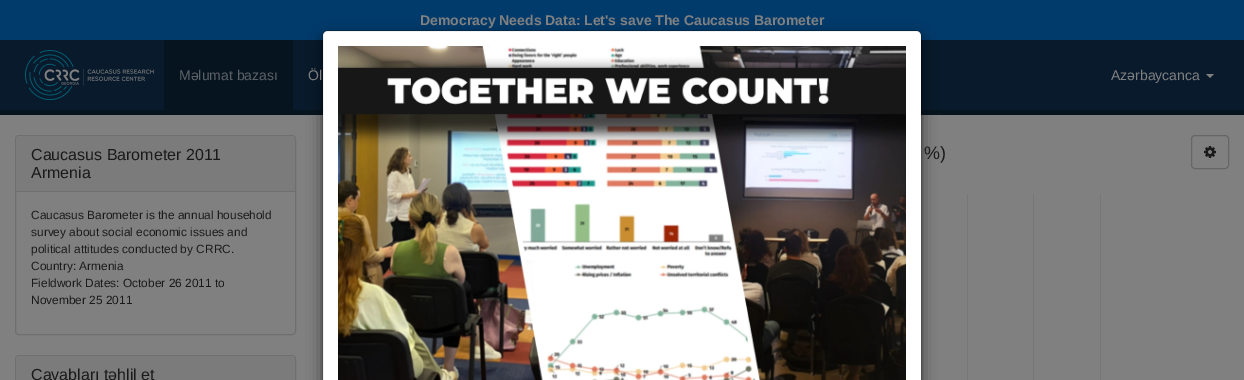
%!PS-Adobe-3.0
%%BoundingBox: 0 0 1244 380
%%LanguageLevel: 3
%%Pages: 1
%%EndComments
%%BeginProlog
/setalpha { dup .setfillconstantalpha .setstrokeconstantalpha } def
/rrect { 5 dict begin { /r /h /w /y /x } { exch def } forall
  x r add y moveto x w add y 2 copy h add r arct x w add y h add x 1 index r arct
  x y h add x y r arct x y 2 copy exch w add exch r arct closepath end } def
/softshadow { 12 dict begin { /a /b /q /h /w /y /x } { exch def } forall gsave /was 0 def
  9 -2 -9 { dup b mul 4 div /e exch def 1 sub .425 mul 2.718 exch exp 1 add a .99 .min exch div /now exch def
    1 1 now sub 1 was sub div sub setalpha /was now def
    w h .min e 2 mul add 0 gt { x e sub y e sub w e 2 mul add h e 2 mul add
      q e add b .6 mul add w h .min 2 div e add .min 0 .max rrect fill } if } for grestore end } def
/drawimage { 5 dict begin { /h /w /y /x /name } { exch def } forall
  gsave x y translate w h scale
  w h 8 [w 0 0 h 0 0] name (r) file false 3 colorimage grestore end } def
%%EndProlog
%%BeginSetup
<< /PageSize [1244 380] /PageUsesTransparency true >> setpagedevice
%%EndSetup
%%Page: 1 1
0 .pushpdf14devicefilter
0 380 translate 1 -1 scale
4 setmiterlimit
0.502 setgray
0 0 1244 380 rectfill
0.004 0.231 0.424 setrgbcolor
0 0 1244 40 rectfill
0.031 0.102 0.169 setrgbcolor
0 40 1244 70 rectfill
0.024 0.078 0.125 setrgbcolor
0 110 1244 5 rectfill
(images/3.raw) 921 193 180 187 drawimage
0 setgray
322 35 600 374 6 7.5 0.5 softshadow
1 setgray
newpath 328 31 moveto 916 31 lineto 919 31 921 33 921 36 curveto 921 380 lineto 323 380 lineto 323 36 lineto 323 33 325 31 328 31 curveto closepath fill
0.2 setalpha
0 setgray
322.5 30.5 599 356 5.5 rrect stroke
1 setalpha
(images/1.raw) 338 46 568 334 drawimage
(images/2.raw) 25 50 129 50 drawimage
0.024 0.078 0.125 setrgbcolor
164 40 129 70 rectfill
0.502 setgray
newpath 1206 74 moveto 1214 74 lineto 1210 78 lineto closepath fill
0.435 setgray
15.5 135.5 280 199 3.5 rrect stroke
0.482 setgray
newpath 19 136 moveto 292 136 lineto 293.5 136 295 137.5 295 139 curveto 295 192 lineto 16 192 lineto 16 139 lineto 16 137.5 17.5 136 19 136 curveto closepath fill
0.435 setgray
16 191 279 1 rectfill
15.5 355.5 280 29 3.5 rrect stroke
0.482 setgray
newpath 19 356 moveto 292 356 lineto 293.5 356 295 357.5 295 359 curveto 295 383 lineto 16 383 lineto 16 359 lineto 16 357.5 17.5 356 19 356 curveto closepath fill
0.4 setgray
1191.5 135.5 37 33 3.5 rrect stroke
(images/4.raw) 1204 146 12 12 drawimage
/LiberationSans-Bold [14 0 0 -14 0 0] selectfont
0.502 setgray
420 25 moveto (Democracy Needs Data: Let's save The Caucasus Barometer) show
/LiberationSans-Regular [14 0 0 -14 0 0] selectfont
0.361 0.38 0.4 setrgbcolor
179 80 moveto (Məlumat bazası) show
0.502 setgray
308 80 moveto (Öl) show
1111 80 moveto (Azərbaycanca) show
/LiberationSans-Regular [16 0 0 -16 0 0] selectfont
0.102 setgray
31 160 moveto (Caucasus Barometer 2011) show
31 178 moveto (Armenia) show
/LiberationSans-Regular [11.9 0 0 -11.9 0 0] selectfont
31 219 moveto (Caucasus Barometer is the annual household) show
31 236 moveto (survey about social economic issues and) show
31 253 moveto (political attitudes conducted by CRRC.) show
31 270 moveto (Country: Armenia) show
31 287 moveto (Fieldwork Dates: October 26 2011 to) show
31 304 moveto (November 25 2011) show
/LiberationSans-Regular [16 0 0 -16 0 0] selectfont
31 380 moveto (Cavabları təhlil et) show
/LiberationSans-Regular [18 0 0 -18 0 0] selectfont
924 159 moveto (%\)) show
.poppdf14devicefilter showpage
%%EOF
